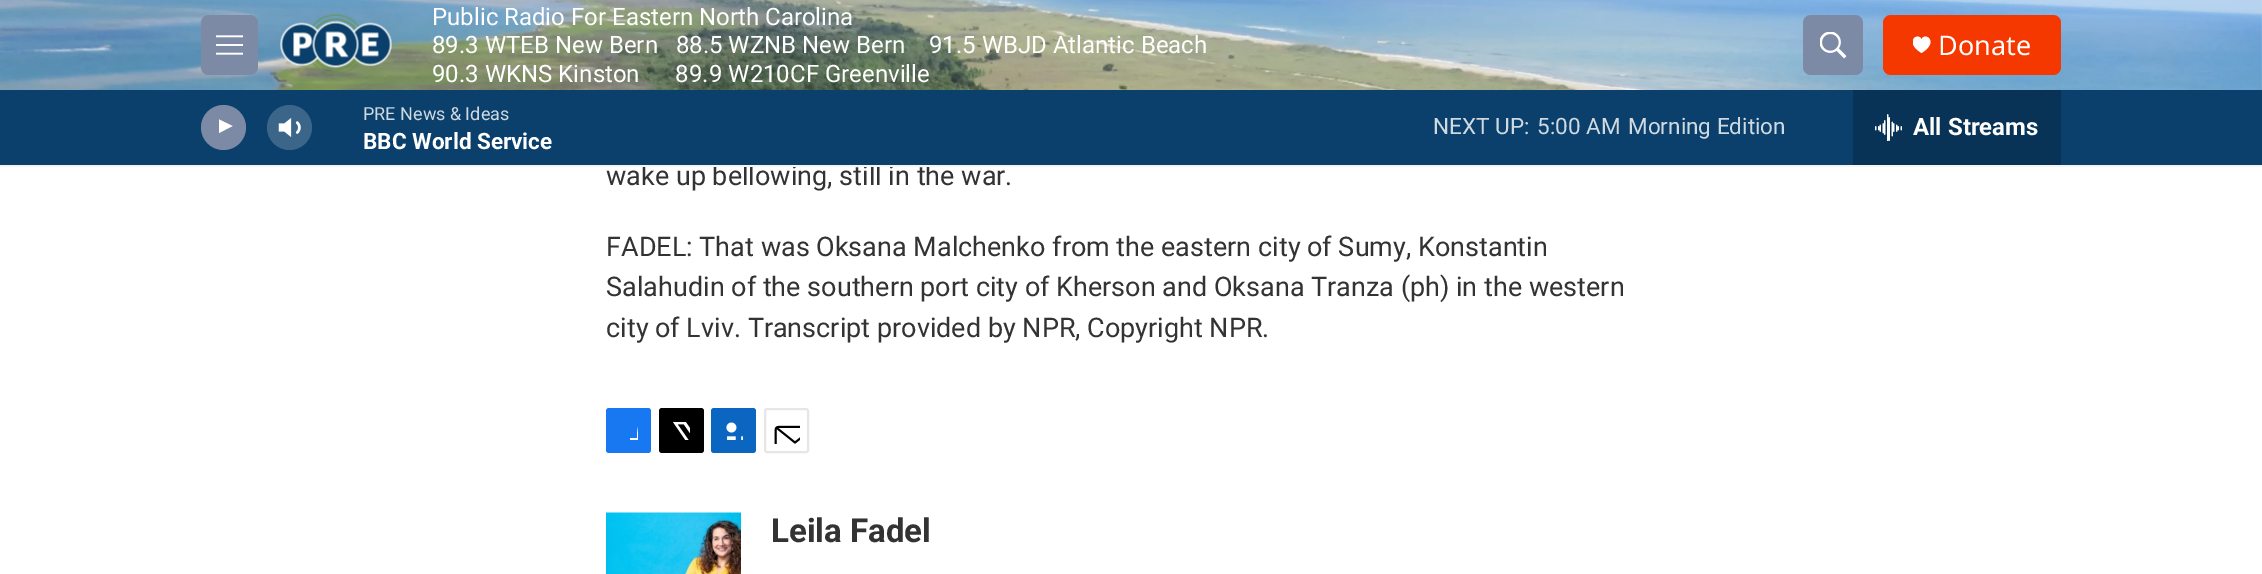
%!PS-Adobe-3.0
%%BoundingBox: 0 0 2262 574
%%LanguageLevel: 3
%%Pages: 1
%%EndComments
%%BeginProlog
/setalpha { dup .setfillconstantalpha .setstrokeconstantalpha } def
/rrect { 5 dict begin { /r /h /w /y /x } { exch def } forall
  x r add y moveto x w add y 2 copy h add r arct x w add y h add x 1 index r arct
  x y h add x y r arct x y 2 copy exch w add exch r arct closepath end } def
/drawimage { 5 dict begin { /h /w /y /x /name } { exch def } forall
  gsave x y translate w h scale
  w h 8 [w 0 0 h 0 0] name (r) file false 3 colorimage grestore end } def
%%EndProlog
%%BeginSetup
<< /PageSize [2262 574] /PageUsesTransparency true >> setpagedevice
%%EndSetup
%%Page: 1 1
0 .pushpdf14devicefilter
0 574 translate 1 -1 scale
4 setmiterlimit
1 setgray
0 0 2262 574 rectfill
(images/1.raw) 0 0 2262 90 drawimage
0.49 0.541 0.651 setrgbcolor
201 15 57 60 8 rrect fill
(images/2.raw) 216 35 27 20 drawimage
(images/3.raw) 280 14 112 61 drawimage
1803 15 60 60 8 rrect fill
(images/4.raw) 1820 32 27 27 drawimage
0.961 0.216 0 setrgbcolor
1883 15 178 60 8 rrect fill
gsave
1913 36 18 18 rectclip
1 setgray
newpath 1921.5 39.5 moveto 1918.5 31.5 1903 41.5 1921.5 53 curveto 1940 41.5 1924.5 31.5 1921.5 39.5 curveto closepath fill
grestore
0.09 0.471 0.949 setrgbcolor
606 408 45 45 3 rrect fill
gsave
620 422 18 18 rectclip
1 setgray
newpath 644 453 moveto 637 453 lineto 637 446 lineto 630 446 lineto 630 438 lineto 637 438 lineto 637 426.5 638 420.5 651 422 curveto 651 429 lineto 643 429 644 431.5 644 438 curveto 651 438 lineto 650 446 lineto 644 446 lineto closepath fill
grestore
0 setgray
659 408 45 45 3 rrect fill
(images/7.raw) 673 422 17 18 drawimage
0.039 0.4 0.757 setrgbcolor
711 408 45 45 3 rrect fill
(images/8.raw) 726 422 17 18 drawimage
0.902 setgray
2 setlinewidth
765 409 43 43 2 rrect stroke
(images/9.raw) 774 425 26 19 drawimage
(images/10.raw) 606 512 135 62 drawimage
/Roboto-Regular [24 0 0 -24 0 0] selectfont
1 setgray
432 25 moveto (Public Radio For Eastern North Carolina) show
432 53 moveto (89.3 WTEB New Bern   88.5 WZNB New Bern    91.5 WBJD Atlantic Beach) show
432 82 moveto (90.3 WKNS Kinston      89.9 W210CF Greenville) show
/NotoSans-Regular [27 0 0 -27 0 0] selectfont
1938 55 moveto (Donate) show
/Roboto-Regular [27 0 0 -27 0 0] selectfont
0.2 setgray
606 185 moveto (wake up bellowing, still in the war.) show
0.039 0.251 0.42 setrgbcolor
0 90 2262 75 rectfill
/Roboto-Regular [22.5 0 0 -22.5 0 0] selectfont
0.808 0.851 0.882 setrgbcolor
1628 134 moveto (Morning Edition) show
1537 134 moveto (5:00 AM) show
1433 134 moveto (NEXT UP:) show
/Roboto-Regular [18 0 0 -18 0 0] selectfont
363 120 moveto (PRE News & Ideas) show
(images/5.raw) 278 118 23 19 drawimage
0.2 setalpha
1 setgray
newpath 289.5 127.5 22.5 0 360 arc closepath fill
1 setalpha
0.49 0.541 0.651 setrgbcolor
newpath 223.5 127.5 22.5 0 360 arc closepath fill
gsave
219 117 17 23 rectclip
1 setgray
newpath 218 119 moveto 232.5 126 lineto 218 133.5 lineto closepath fill
grestore
0.031 0.2 0.337 setrgbcolor
1853 90 208 75 rectfill
(images/6.raw) 1875 114 27 27 drawimage
/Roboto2-Bold [22.5 0 0 -22.5 0 0] selectfont
1 setgray
363 149 moveto (BBC World Service) show
/Roboto2-Bold [24 0 0 -24 0 0] selectfont
1913 135 moveto (All Streams) show
0.961 setgray
0 165 2262 2 rectfill
/Roboto-Regular [27 0 0 -27 0 0] selectfont
0.2 setgray
606 256 moveto (FADEL: That was Oksana Malchenko from the eastern city of Sumy, Konstantin) show
606 296 moveto (Salahudin of the southern port city of Kherson and Oksana Tranza \(ph\) in the western) show
606 337 moveto (city of Lviv. Transcript provided by NPR, Copyright NPR.) show
/Roboto-Bold [33 0 0 -33 0 0] selectfont
771 542 moveto (Leila Fadel) show
.poppdf14devicefilter showpage
%%EOF
